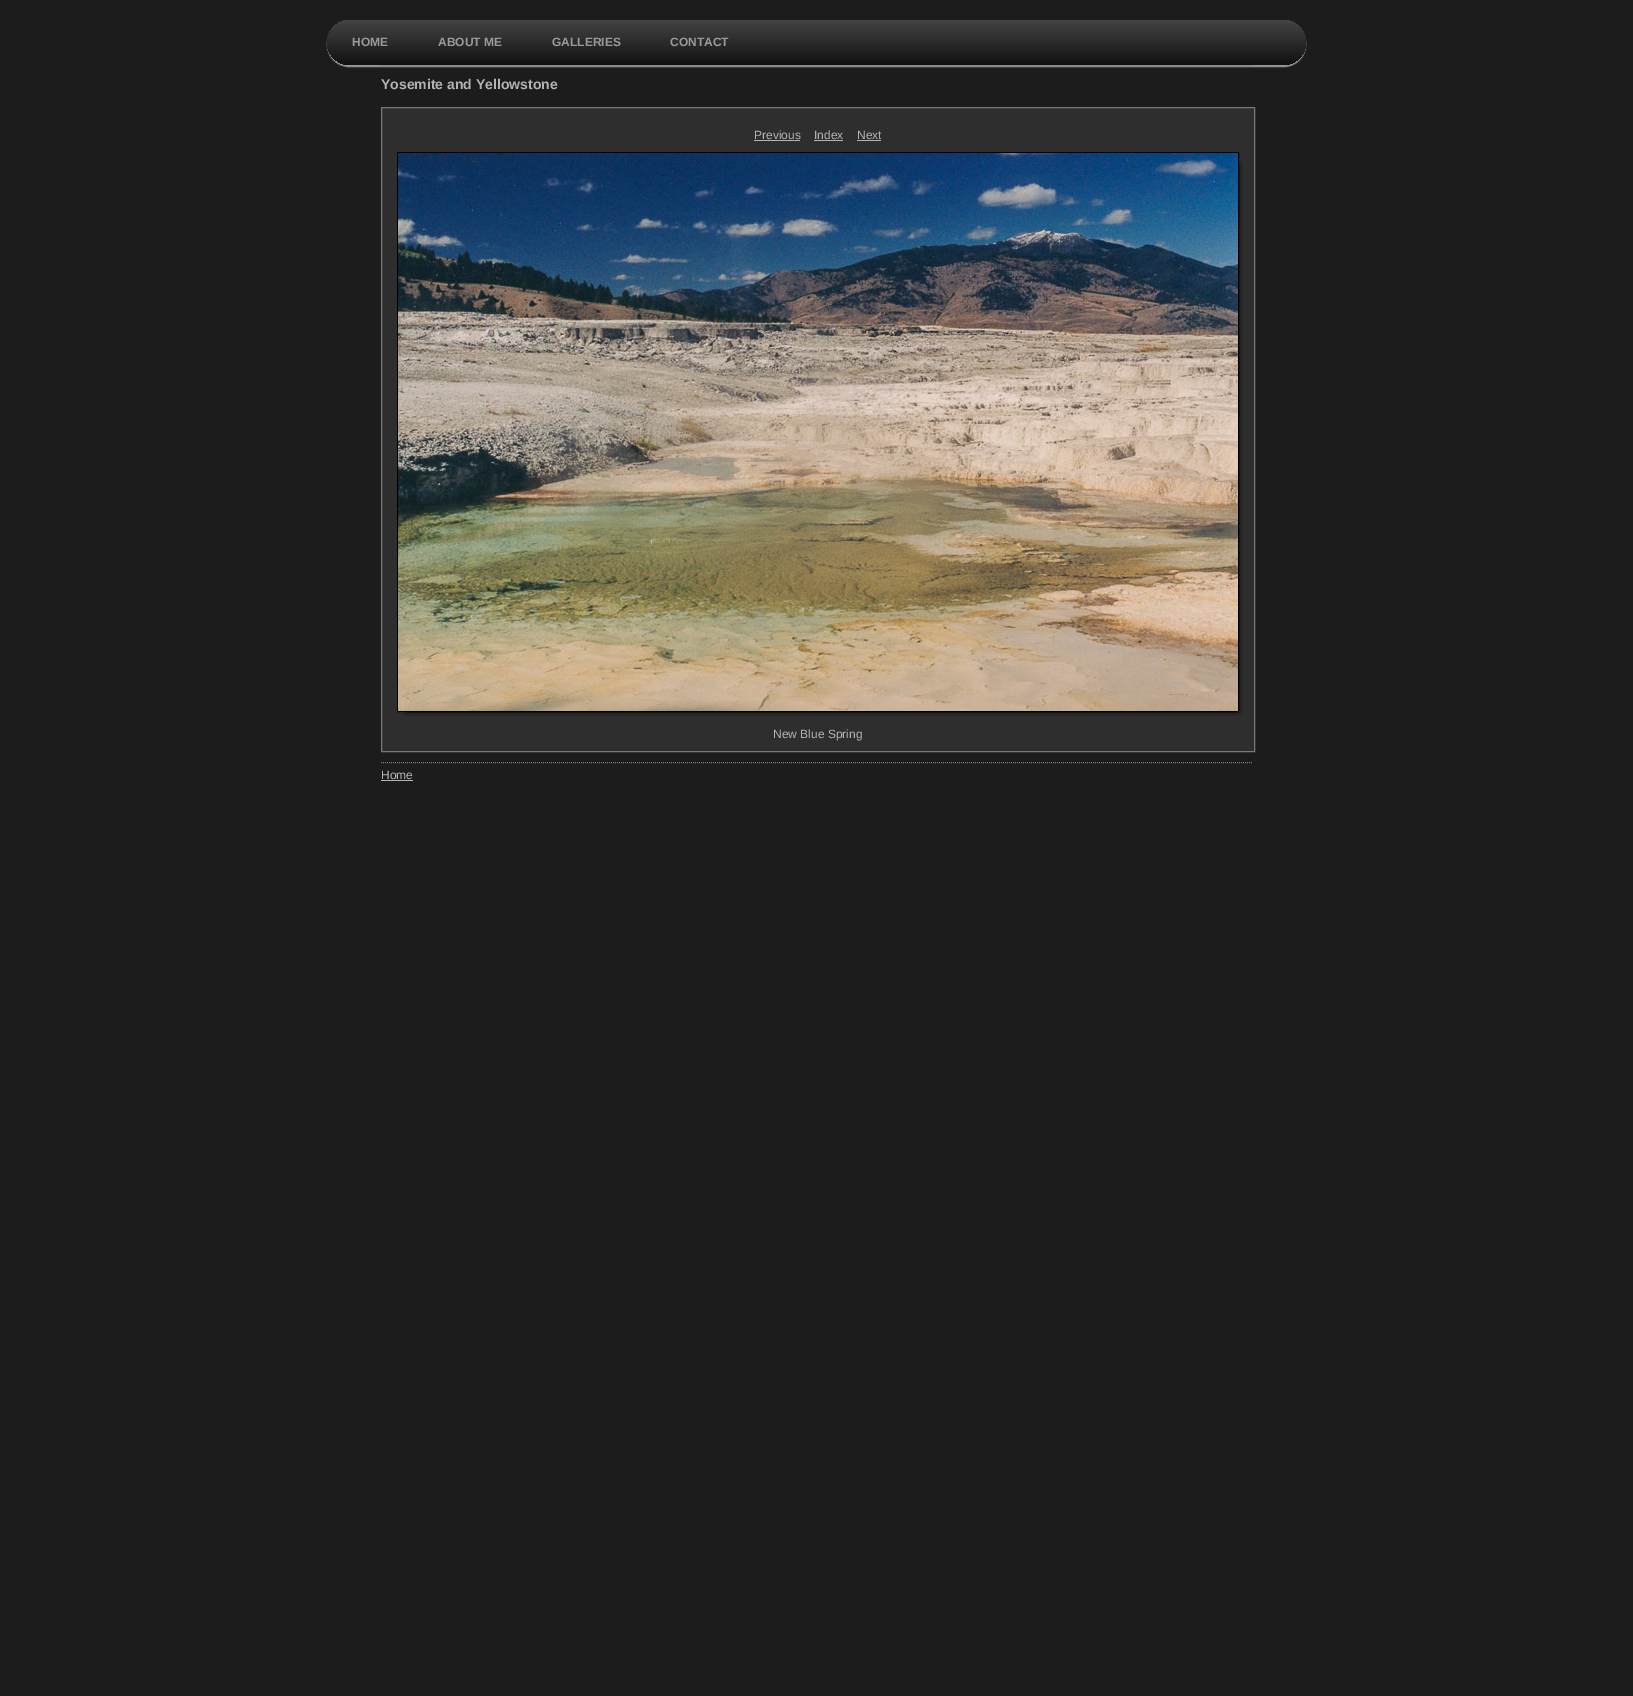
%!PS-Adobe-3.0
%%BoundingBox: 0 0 1633 1696
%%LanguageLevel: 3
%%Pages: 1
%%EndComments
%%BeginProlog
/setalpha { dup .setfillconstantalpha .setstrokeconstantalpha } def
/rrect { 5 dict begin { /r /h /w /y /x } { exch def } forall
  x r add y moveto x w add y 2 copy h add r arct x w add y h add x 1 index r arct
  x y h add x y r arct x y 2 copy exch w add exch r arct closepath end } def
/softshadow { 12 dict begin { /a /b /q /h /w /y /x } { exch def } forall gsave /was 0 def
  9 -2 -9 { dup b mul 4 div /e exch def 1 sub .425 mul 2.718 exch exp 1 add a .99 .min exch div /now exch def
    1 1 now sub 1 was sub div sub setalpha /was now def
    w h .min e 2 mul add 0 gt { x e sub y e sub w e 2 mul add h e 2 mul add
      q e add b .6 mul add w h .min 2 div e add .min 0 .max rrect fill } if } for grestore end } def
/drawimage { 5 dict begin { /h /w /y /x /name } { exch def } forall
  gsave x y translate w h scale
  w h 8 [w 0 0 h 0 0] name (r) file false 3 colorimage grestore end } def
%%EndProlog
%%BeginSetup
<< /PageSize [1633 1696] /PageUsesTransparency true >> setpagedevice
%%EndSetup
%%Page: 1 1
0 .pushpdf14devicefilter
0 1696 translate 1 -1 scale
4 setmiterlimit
0.11 setgray
0 0 1633 1696 rectfill
0.612 setgray
327 22 979 45 22.5 0.5 1 softshadow
gsave 327 20 979 45 22.5 rrect clip newpath
<< /ShadingType 2 /ColorSpace /DeviceRGB /Coords [817 20 817 65] /Extend [true true] /Function << /FunctionType 2 /Domain [0 1] /C0 [0.267 0.267 0.267] /C1 [0.067 0.067 0.067] /N 1 >> >> shfill grestore
0.498 setgray
[1 1] 0 setdash
newpath 381 65.5 moveto 1253 65.5 lineto stroke
newpath 381 762.5 moveto 1253 762.5 lineto stroke
0.18 setgray
newpath 381.5 107.5 moveto 1254.5 107.5 lineto 1254.5 751.5 lineto 381.5 751.5 lineto closepath gsave fill grestore
0.471 setgray
[] 0 setdash
stroke
0.702 setgray
754 140 46 1 rectfill
814 140 29 1 rectfill
857 140 24 1 rectfill
(images/1.raw) 407 165 836 551 drawimage
0 setgray
397.5 152.5 841 559 rectstroke
(images/2.raw) 398 153 840 558 drawimage
(images/3.raw) 1239 159 4 6 drawimage
(images/4.raw) 401 712 6 4 drawimage
0.702 setgray
381 780 32 1 rectfill
/LiberationSans-Bold [12 0 0 -12 0 0] selectfont
0.6 setgray
352 46 moveto (HOME) show
438 46 moveto (ABOUT ME) show
552 46 moveto (GALLERIES) show
670 46 moveto (CONTACT) show
/LiberationSans-Bold [14 0 0 -14 0 0] selectfont
0.702 setgray
381 89 moveto (Yosemite and Yellowstone) show
/LiberationSans-Regular [12 0 0 -12 0 0] selectfont
754 139 moveto (Previous) show
814 139 moveto (Index) show
857 139 moveto (Next) show
773 738 moveto (New Blue Spring) show
381 779 moveto (Home) show
.poppdf14devicefilter showpage
%%EOF
